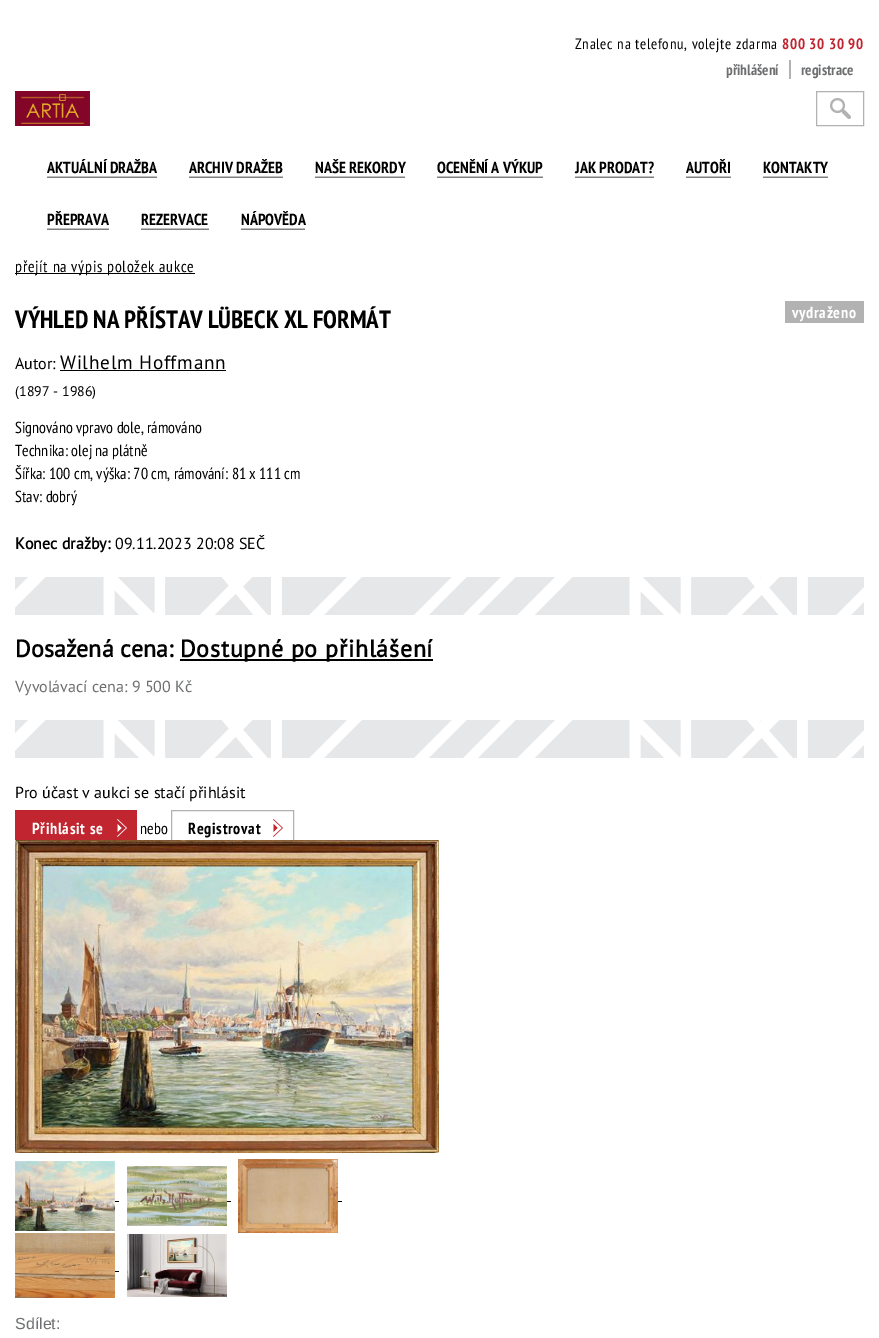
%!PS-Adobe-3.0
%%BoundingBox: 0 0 879 1338
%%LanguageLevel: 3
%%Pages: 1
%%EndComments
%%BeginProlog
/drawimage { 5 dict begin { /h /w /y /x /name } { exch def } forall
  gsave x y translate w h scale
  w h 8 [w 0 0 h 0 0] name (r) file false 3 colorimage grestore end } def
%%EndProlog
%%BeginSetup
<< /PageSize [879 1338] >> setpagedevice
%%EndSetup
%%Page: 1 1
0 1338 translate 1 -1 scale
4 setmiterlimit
1 setgray
0 0 879 1338 rectfill
0.698 setgray
789 60 2 19 rectfill
(images/1.raw) 15 91 75 35 drawimage
(images/2.raw) 830 98 21 21 drawimage
816.5 91.5 47 34 rectstroke
(images/3.raw) 47 176 110 2 drawimage
(images/4.raw) 189 176 94 2 drawimage
(images/5.raw) 315 176 90 2 drawimage
(images/6.raw) 437 176 106 2 drawimage
(images/7.raw) 575 176 79 2 drawimage
(images/8.raw) 686 176 45 2 drawimage
(images/9.raw) 763 176 65 2 drawimage
(images/10.raw) 47 228 62 2 drawimage
(images/11.raw) 141 228 68 2 drawimage
(images/12.raw) 241 228 64 2 drawimage
0 setgray
15 273 180 1 rectfill
60 370 166 1 rectfill
0.698 setgray
785 301 79 22 rectfill
(images/13.raw) 15 577 849 38 drawimage
0 setgray
180 659 253 2 rectfill
(images/13.raw) 15 720 849 38 drawimage
0.757 0.145 0.184 setrgbcolor
15 810 122 30 rectfill
(images/14.raw) 117 819 10 18 drawimage
(images/15.raw) 273 819 10 18 drawimage
0.698 setgray
171.5 810.5 122 35 rectstroke
(images/16.raw) 15 840 424 313 drawimage
(images/17.raw) 15 1161 100 70 drawimage
0 setgray
115 1201 4 1 rectfill
(images/18.raw) 127 1166 100 60 drawimage
227 1201 4 1 rectfill
(images/19.raw) 238 1159 100 74 drawimage
338 1201 4 1 rectfill
(images/20.raw) 15 1233 100 65 drawimage
115 1271 4 1 rectfill
(images/21.raw) 127 1234 100 63 drawimage
/PTSansNarrow-Regular [15 0 0 -15 0 0] selectfont
575 49 moveto 0.7 0 (Znalec na telefonu, volejte zdarma) ashow
/PTSansNarrow-Bold [15 0 0 -15 0 0] selectfont
0.757 0.145 0.184 setrgbcolor
782 49 moveto 0.7 0 (800 30 30 90) ashow
0.427 0.435 0.443 setrgbcolor
726 75 moveto (přihlášení) show
801 75 moveto (registrace) show
/PTSansNarrow-Bold [16 0 0 -16 0 0] selectfont
0 setgray
47 173 moveto (AKTUÁLNÍ DRAŽBA) show
189 173 moveto (ARCHIV DRAŽEB) show
315 173 moveto (NAŠE REKORDY) show
437 173 moveto (OCENĚNÍ A VÝKUP) show
575 173 moveto (JAK PRODAT?) show
686 173 moveto (AUTOŘI) show
763 173 moveto (KONTAKTY) show
47 225 moveto (PŘEPRAVA) show
141 225 moveto (REZERVACE) show
241 225 moveto (NÁPOVĚDA) show
/PTSansNarrow-Regular [16 0 0 -16 0 0] selectfont
15 272 moveto 0.7 0 (přejít na výpis položek aukce) ashow
/PTSansNarrow-Bold [25 0 0 -25 0 0] selectfont
15 328 moveto (VÝHLED NA PŘÍSTAV LÜBECK XL FORMÁT) show
/PTSans-Regular [16 0 0 -16 0 0] selectfont
15 369 moveto (Autor:) show
/PTSans-Regular [19.25 0 0 -19.25 0 0] selectfont
60 369 moveto 0.7 0 (Wilhelm Hoffmann) ashow
/PTSans-Regular [14 0 0 -14 0 0] selectfont
15 396 moveto (\(1897 - 1986\)) show
/PTSansNarrow-Bold [16 0 0 -16 0 0] selectfont
1 setgray
792 318 moveto 0.7 0 (vydraženo) ashow
/PTSansNarrow-Regular [16 0 0 -16 0 0] selectfont
0 setgray
15 433 moveto (Signováno vpravo dole, rámováno) show
15 456 moveto (Technika: olej na plátně) show
15 479 moveto (Šířka: 100 cm, výška: 70 cm, rámování: 81 x 111 cm) show
15 502 moveto (Stav: dobrý) show
/PTSans-Bold [16 0 0 -16 0 0] selectfont
15 549 moveto (Konec dražby:) show
/PTSans-Regular [16 0 0 -16 0 0] selectfont
115 549 moveto (09.11.2023 20:08 SEČ) show
/PTSans-Bold [24 0 0 -24 0 0] selectfont
15 657 moveto (Dosažená cena:) show
180 657 moveto 0.7 0 (Dostupné po přihlášení) ashow
/PTSans-Regular [16 0 0 -16 0 0] selectfont
0.427 0.435 0.443 setrgbcolor
15 692 moveto (Vyvolávací cena: 9 500 Kč) show
0 setgray
15 798 moveto (Pro účast v aukci se stačí přihlásit) show
/PTSansNarrow-Bold [16 0 0 -16 0 0] selectfont
1 setgray
32 834 moveto 0.7 0 (Přihlásit se) ashow
/PTSansNarrow-Regular [16 0 0 -16 0 0] selectfont
0 setgray
140 834 moveto (nebo) show
/PTSansNarrow-Bold [16 0 0 -16 0 0] selectfont
188 834 moveto 0.7 0 (Registrovat) ashow
/LiberationSans-Regular [16 0 0 -16 0 0] selectfont
0.427 0.435 0.443 setrgbcolor
15 1329 moveto (Sdílet:) show
showpage
%%EOF
